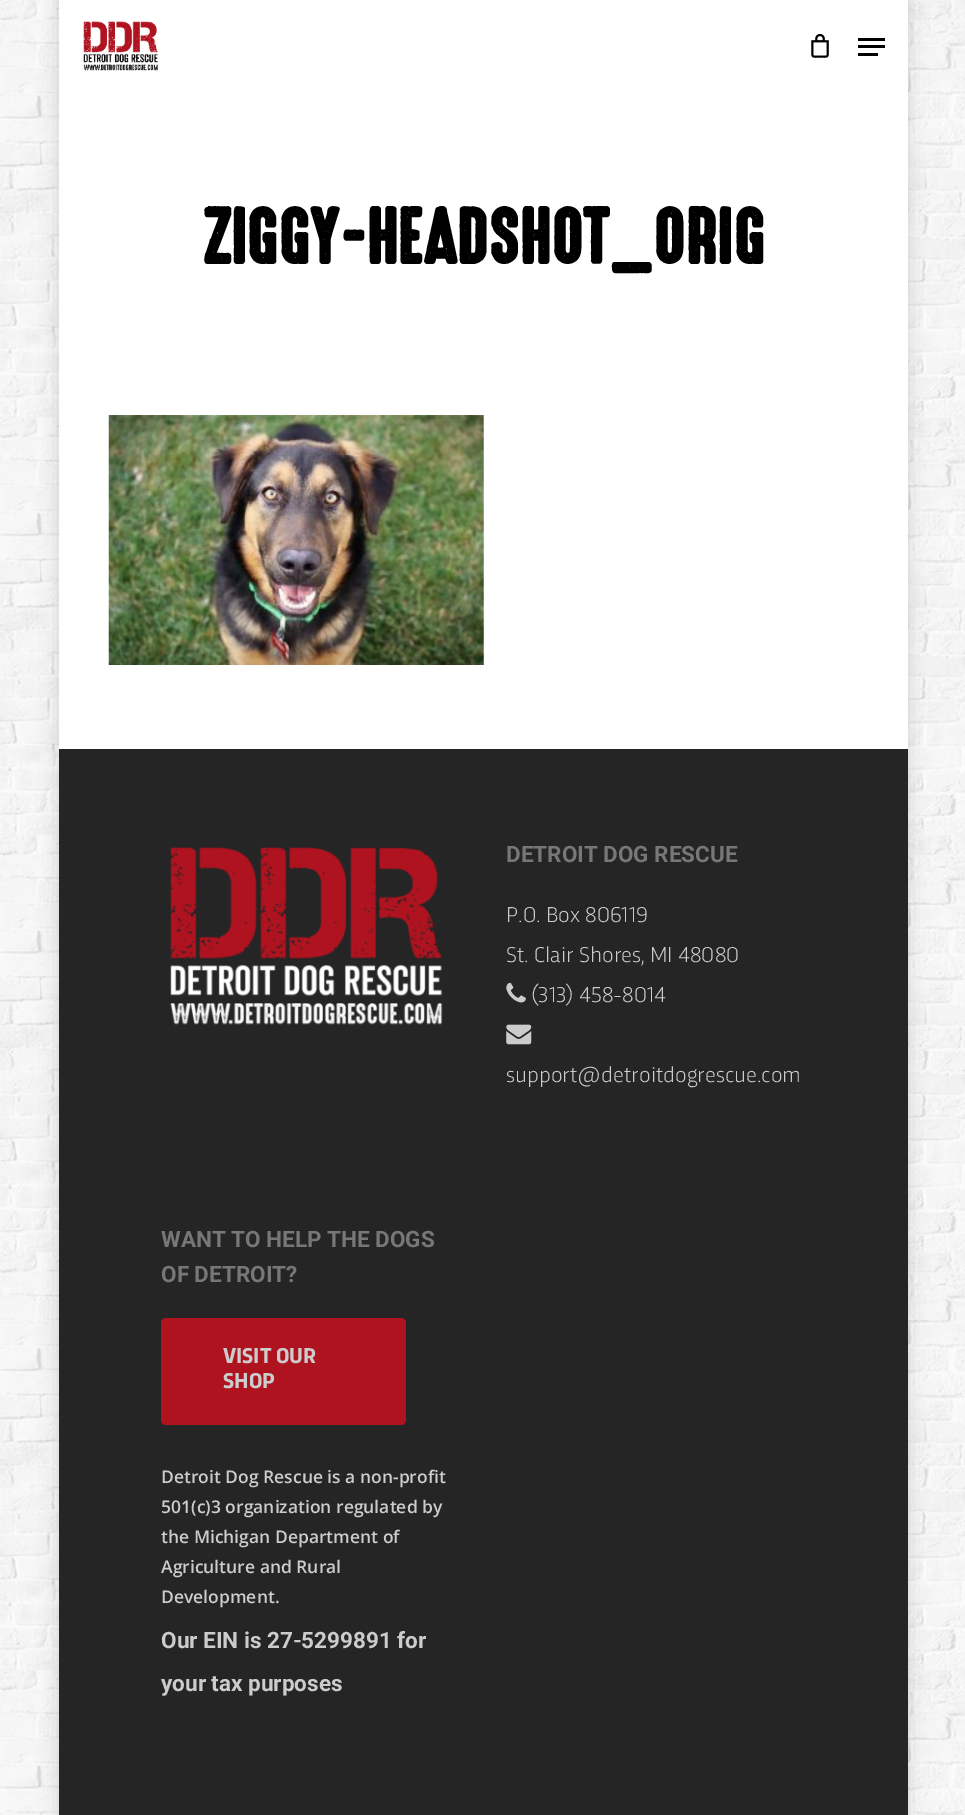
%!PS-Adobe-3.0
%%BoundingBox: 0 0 965 1815
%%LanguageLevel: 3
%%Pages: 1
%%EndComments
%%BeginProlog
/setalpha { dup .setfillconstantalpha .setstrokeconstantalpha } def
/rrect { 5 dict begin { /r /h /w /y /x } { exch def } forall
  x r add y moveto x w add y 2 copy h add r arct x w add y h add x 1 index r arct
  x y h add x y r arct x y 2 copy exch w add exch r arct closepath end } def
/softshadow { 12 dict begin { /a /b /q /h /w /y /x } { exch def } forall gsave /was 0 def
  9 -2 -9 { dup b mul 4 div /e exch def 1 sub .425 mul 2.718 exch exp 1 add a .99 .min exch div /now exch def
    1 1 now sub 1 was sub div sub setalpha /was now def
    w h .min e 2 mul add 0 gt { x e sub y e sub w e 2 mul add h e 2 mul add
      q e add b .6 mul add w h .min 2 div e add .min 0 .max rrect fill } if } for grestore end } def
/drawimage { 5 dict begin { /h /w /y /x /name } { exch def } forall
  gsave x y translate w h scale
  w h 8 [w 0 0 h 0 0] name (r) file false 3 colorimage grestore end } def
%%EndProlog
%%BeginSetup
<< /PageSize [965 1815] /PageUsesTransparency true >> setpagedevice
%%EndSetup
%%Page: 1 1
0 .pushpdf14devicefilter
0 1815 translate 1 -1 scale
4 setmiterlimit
1 setgray
0 0 965 1815 rectfill
(images/1.raw) 0 0 965 1815 drawimage
0 setgray
59 0 849 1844 0 9.5 0.15 softshadow
1 setgray
59 0 849 749 rectfill
(images/2.raw) 83 21 75 50 drawimage
(images/3.raw) 811 34 18 24 drawimage
0 setgray
858 38 27 3 rectfill
858 53 20 3 rectfill
858 45 27 3 rectfill
(images/4.raw) 108 415 376 250 drawimage
0.145 setgray
59 749 849 1066 rectfill
(images/5.raw) 170 847 273 178 drawimage
(images/6.raw) 506 982 20 21 drawimage
(images/7.raw) 506 1024 26 21 drawimage
0.69 0.075 0.125 setrgbcolor
161 1318 245 107 5 rrect fill
/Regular-Bold [71.75 0 0 -71.75 0 0] selectfont
0 setgray
201 264 moveto (ZIGGY-HEADSHOT_ORIG) show
/Roboto-Bold [22.5 0 0 -22.5 0 0] selectfont
0.467 setgray
506 862 moveto (DETROIT DOG RESCUE) show
/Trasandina-Light [22.5 0 0 -22.5 0 0] selectfont
0.8 setgray
506 922 moveto (P.O. Box 806119) show
506 962 moveto (St. Clair Shores, MI 48080) show
531 1002 moveto (\(313\) 458-8014) show
506 1082 moveto (support@detroitdogrescue.com) show
/Roboto-Bold [22.5 0 0 -22.5 0 0] selectfont
0.467 setgray
161 1247 moveto (WANT TO HELP THE DOGS) show
161 1282 moveto (OF DETROIT?) show
/Trasandina-Bold [22.5 0 0 -22.5 0 0] selectfont
0.8 setgray
223 1363 moveto (VISIT OUR) show
223 1388 moveto (SHOP) show
/OpenSans-SemiBold [17.5 0 0 -17.5 0 0] selectfont
161 1483 moveto (Detroit Dog Rescue is a non-profit) show
161 1513 moveto (501\(c\)3 organization regulated by) show
161 1543 moveto (the Michigan Department of) show
161 1573 moveto (Agriculture and Rural) show
161 1603 moveto (Development.) show
/Roboto-Bold [22.5 0 0 -22.5 0 0] selectfont
161 1648 moveto (Our EIN is 27-5299891 for) show
161 1691 moveto (your tax purposes) show
.poppdf14devicefilter showpage
%%EOF
